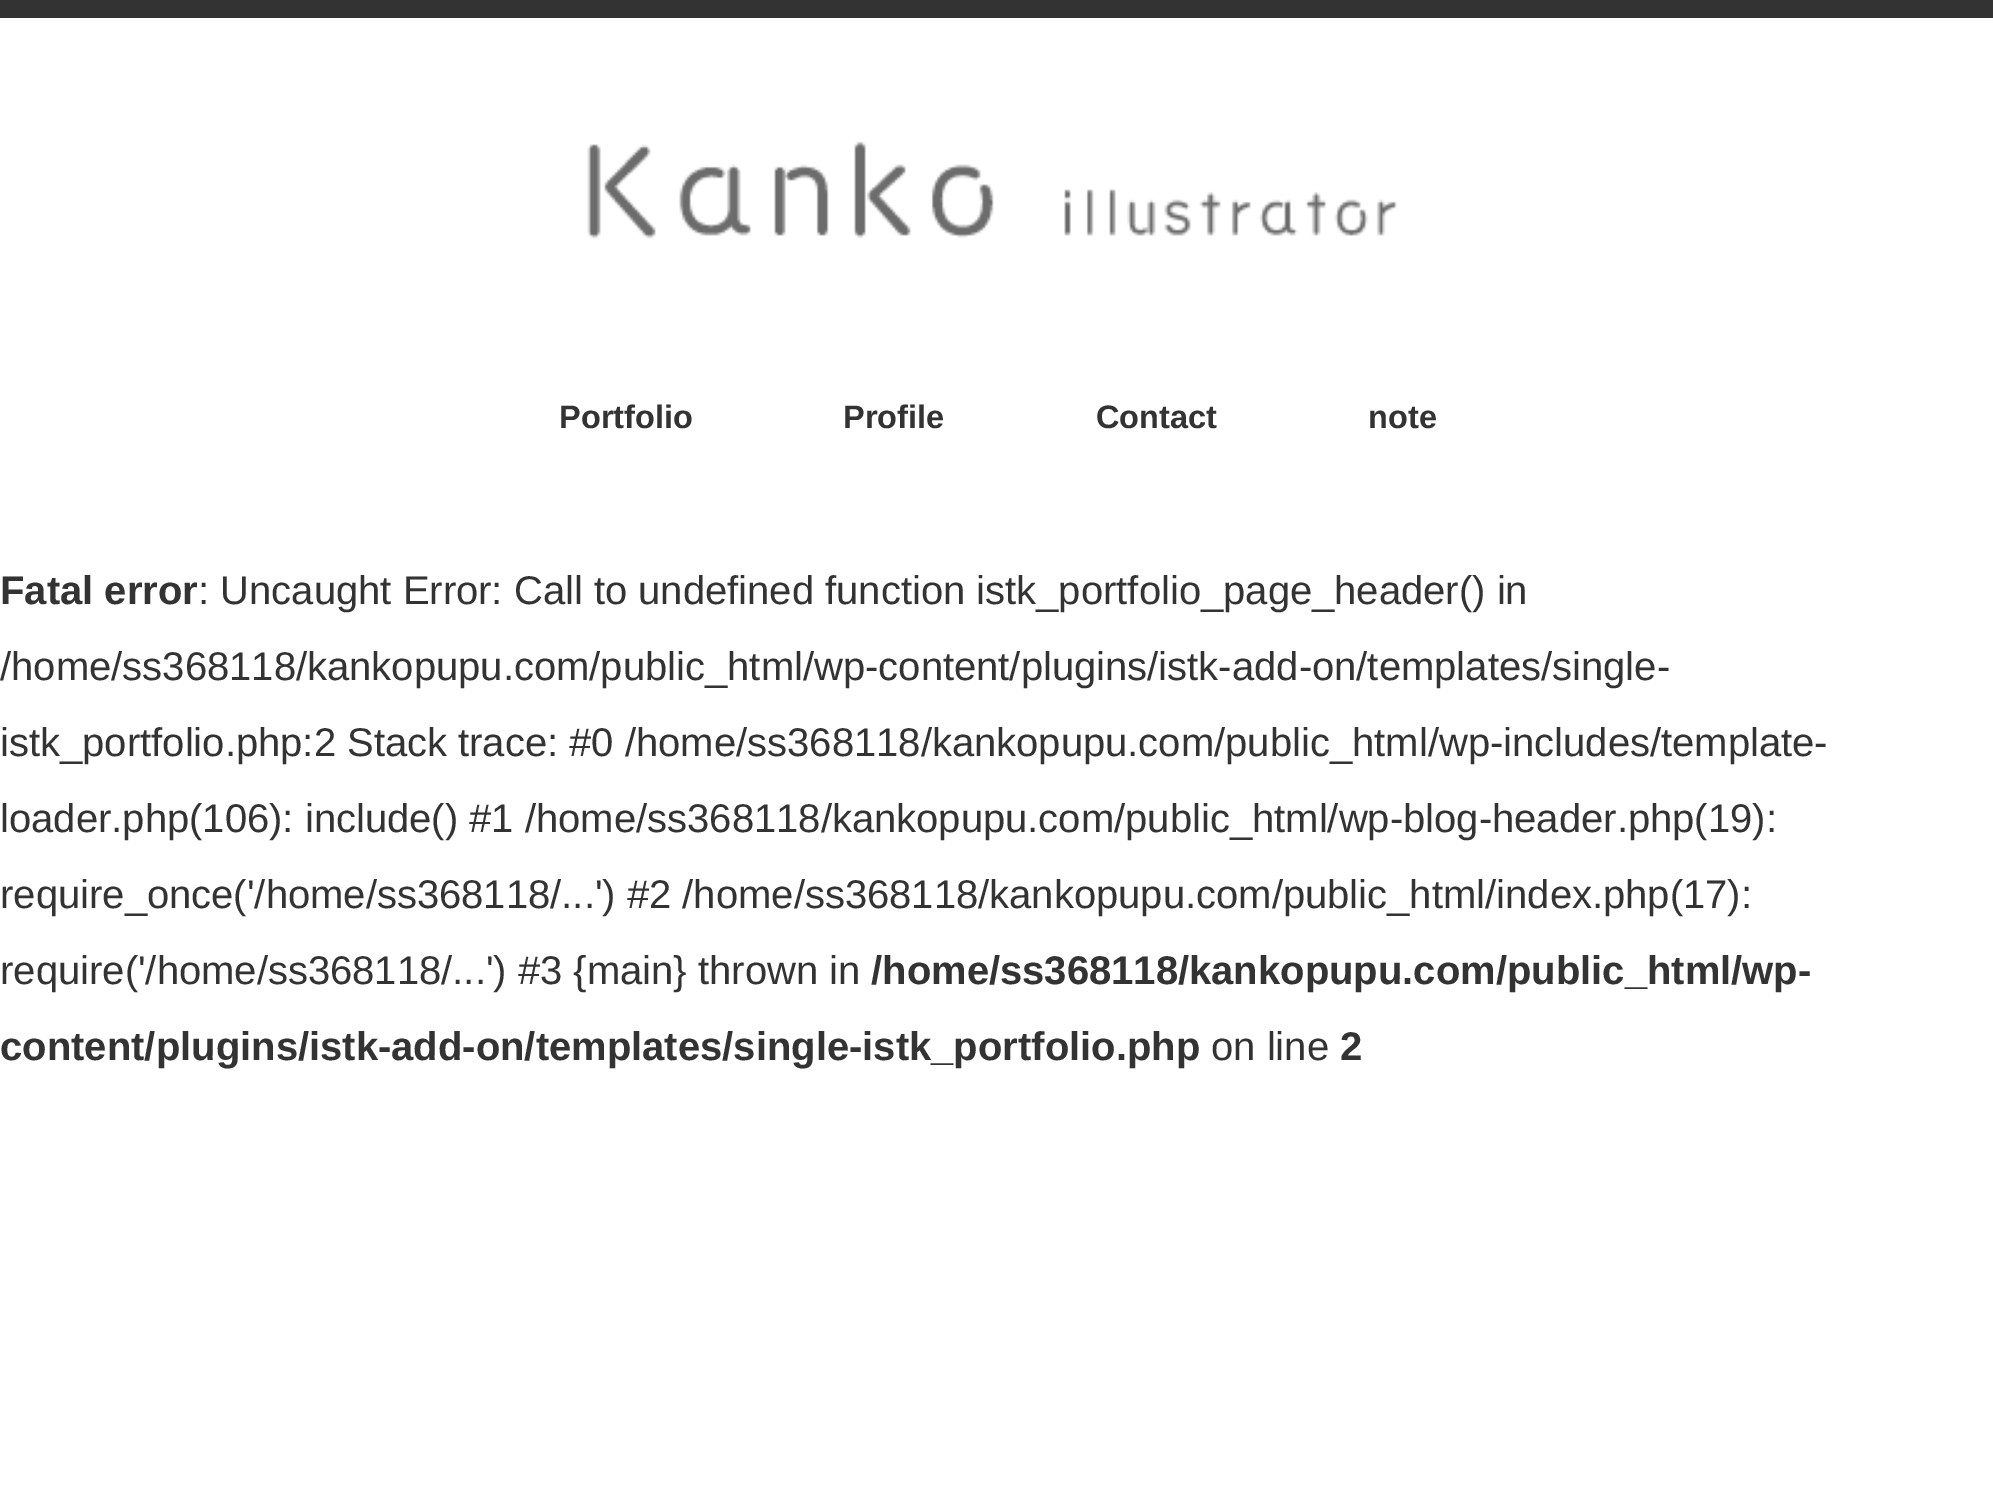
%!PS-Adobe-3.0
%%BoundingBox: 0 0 1993 1488
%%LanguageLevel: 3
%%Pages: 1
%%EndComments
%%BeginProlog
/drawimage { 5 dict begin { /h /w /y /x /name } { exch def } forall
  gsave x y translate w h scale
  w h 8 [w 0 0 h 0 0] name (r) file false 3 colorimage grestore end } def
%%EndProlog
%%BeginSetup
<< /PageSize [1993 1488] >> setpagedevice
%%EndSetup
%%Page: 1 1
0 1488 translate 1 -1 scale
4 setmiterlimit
1 setgray
0 0 1993 1488 rectfill
0.2 setgray
0 0 1993 18 rectfill
(images/1.raw) 587 141 811 98 drawimage
/LiberationSans-Bold [32.5 0 0 -32.5 0 0] selectfont
559 428 moveto (Portfolio) show
843 428 moveto (Profile) show
1096 428 moveto (Contact) show
1368 428 moveto (note) show
/LiberationSans-Bold [40 0 0 -40 0 0] selectfont
0 604 moveto (Fatal error) show
/LiberationSans-Regular [40 0 0 -40 0 0] selectfont
198 604 moveto (: Uncaught Error: Call to undefined function istk_portfolio_page_header\(\) in) show
0 680 moveto (/home/ss368118/kankopupu.com/public_html/wp-content/plugins/istk-add-on/templates/single-) show
0 756 moveto (istk_portfolio.php:2 Stack trace: #0 /home/ss368118/kankopupu.com/public_html/wp-includes/template-) show
0 832 moveto (loader.php\(106\): include\(\) #1 /home/ss368118/kankopupu.com/public_html/wp-blog-header.php\(19\):) show
0 908 moveto (require_once\('/home/ss368118/...'\) #2 /home/ss368118/kankopupu.com/public_html/index.php\(17\):) show
0 984 moveto (require\('/home/ss368118/...'\) #3 {main} thrown in) show
/LiberationSans-Bold [40 0 0 -40 0 0] selectfont
871 984 moveto (/home/ss368118/kankopupu.com/public_html/wp-) show
0 1060 moveto (content/plugins/istk-add-on/templates/single-istk_portfolio.php) show
/LiberationSans-Regular [40 0 0 -40 0 0] selectfont
1211 1060 moveto (on line) show
/LiberationSans-Bold [40 0 0 -40 0 0] selectfont
1340 1060 moveto (2) show
showpage
%%EOF
